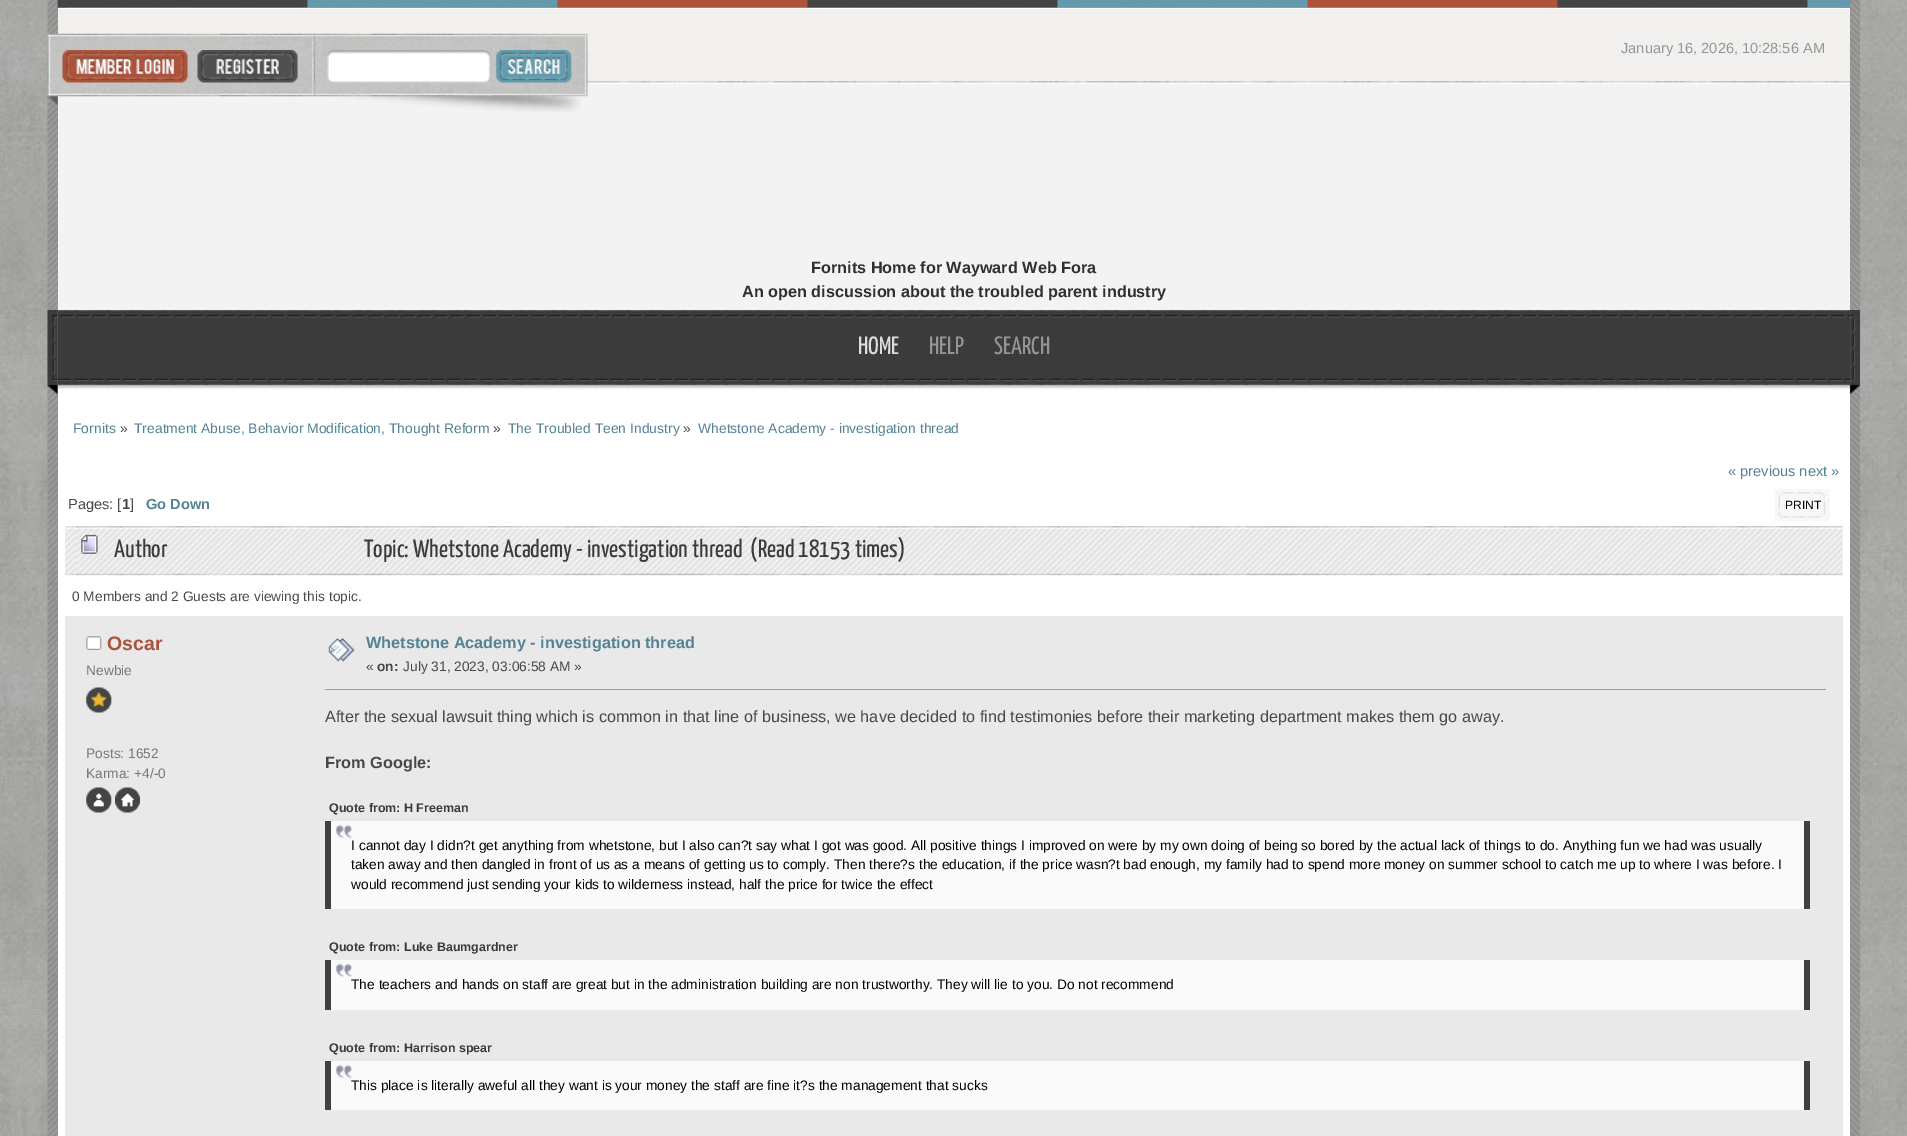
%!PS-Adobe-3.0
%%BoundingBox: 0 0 1907 1136
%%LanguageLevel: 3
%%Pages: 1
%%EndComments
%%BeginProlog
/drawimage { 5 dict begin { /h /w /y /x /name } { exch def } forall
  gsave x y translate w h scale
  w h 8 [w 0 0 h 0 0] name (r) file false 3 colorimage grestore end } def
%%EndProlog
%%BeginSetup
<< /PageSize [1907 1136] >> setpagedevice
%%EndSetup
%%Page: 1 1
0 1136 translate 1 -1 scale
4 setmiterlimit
1 setgray
0 0 1907 1136 rectfill
(images/1.raw) 0 0 1907 1136 drawimage
(images/2.raw) 47 0 21 1136 drawimage
(images/3.raw) 1840 0 20 1136 drawimage
(images/4.raw) 57 0 1793 8 drawimage
0.945 0.941 0.933 setrgbcolor
58 9 1792 75 rectfill
(images/5.raw) 312 81 1538 3 drawimage
1 setgray
58 8 1792 1 rectfill
0.953 setgray
58 84 1792 226 rectfill
(images/6.raw) 47 33 266 72 drawimage
(images/7.raw) 62 50 126 33 drawimage
(images/8.raw) 197 50 101 33 drawimage
(images/9.raw) 312 33 276 79 drawimage
(images/10.raw) 327 50 163 33 drawimage
(images/11.raw) 496 50 76 33 drawimage
1 setgray
58 310 1792 826 rectfill
(images/12.raw) 57 310 1793 79 drawimage
(images/13.raw) 47 310 11 84 drawimage
(images/14.raw) 1849 310 11 84 drawimage
(images/15.raw) 1775 489 13 32 drawimage
(images/16.raw) 1788 489 42 32 drawimage
(images/17.raw) 65 526 1778 50 drawimage
(images/18.raw) 76 526 1767 50 drawimage
(images/19.raw) 81 534 17 20 drawimage
0.914 setgray
65 616 1778 520 rectfill
(images/20.raw) 86 636 16 14 drawimage
(images/21.raw) 86 687 26 26 drawimage
(images/22.raw) 86 787 26 26 drawimage
(images/23.raw) 115 787 25 26 drawimage
(images/24.raw) 328 638 26 24 drawimage
0.6 0.6 0.667 setrgbcolor
325 689 1501 1 rectfill
0.98 setgray
331 821 1473 88 rectfill
(images/25.raw) 336 825 16 14 drawimage
0.251 setgray
1804 821 6 88 rectfill
325 821 6 88 rectfill
0.98 setgray
331 960 1473 50 rectfill
(images/26.raw) 336 963 16 14 drawimage
0.251 setgray
1804 960 6 50 rectfill
325 960 6 50 rectfill
0.98 setgray
331 1061 1473 49 rectfill
(images/25.raw) 336 1065 16 14 drawimage
0.251 setgray
1804 1061 6 49 rectfill
325 1061 6 49 rectfill
/LiberationSans-Regular [14.6 0 0 -14.6 0 0] selectfont
0.584 setgray
1621 53 moveto (January 16, 2026, 10:28:56 AM) show
/LiberationSans-Bold [16.25 0 0 -16.25 0 0] selectfont
0.188 setgray
811 273 moveto (Fornits Home for Wayward Web Fora) show
742 297 moveto (An open discussion about the troubled parent industry) show
/YanoneKaffeesatz-Regular [25 0 0 -25 0 0] selectfont
0.867 setgray
858 354 moveto (HOME) show
0.584 setgray
929 354 moveto (HELP) show
994 354 moveto (SEARCH) show
/LiberationSans-Regular [13.9 0 0 -13.9 0 0] selectfont
0.325 0.514 0.58 setrgbcolor
73 433 moveto (Fornits) show
0.282 setgray
120 433 moveto (») show
0.325 0.514 0.58 setrgbcolor
134 433 moveto (Treatment Abuse, Behavior Modification, Thought Reform) show
0.282 setgray
493 433 moveto (») show
0.325 0.514 0.58 setrgbcolor
508 433 moveto (The Troubled Teen Industry) show
0.282 setgray
683 433 moveto (») show
0.325 0.514 0.58 setrgbcolor
698 433 moveto (Whetstone Academy - investigation thread) show
/LiberationSans-Regular [14.6 0 0 -14.6 0 0] selectfont
1728 476 moveto (« previous next ») show
0.282 setgray
68 509 moveto (Pages: [) show
/LiberationSans-Bold [14.6 0 0 -14.6 0 0] selectfont
122 509 moveto (1) show
/LiberationSans-Regular [14.6 0 0 -14.6 0 0] selectfont
130 509 moveto (]) show
/LiberationSans-Bold [14.6 0 0 -14.6 0 0] selectfont
0.325 0.514 0.58 setrgbcolor
146 509 moveto (Go Down) show
/LiberationSans-Regular [12 0 0 -12 0 0] selectfont
0 setgray
1785 509 moveto (PRINT) show
/YanoneKaffeesatz-Regular [25 0 0 -25 0 0] selectfont
0.231 setgray
114 557 moveto (Author) show
364 557 moveto (Topic: Whetstone Academy - investigation thread  \(Read 18153 times\)) show
/LiberationSans-Regular [13.75 0 0 -13.75 0 0] selectfont
0.282 setgray
72 601 moveto (0 Members and 2 Guests are viewing this topic.) show
/LiberationSans-Bold [19.5 0 0 -19.5 0 0] selectfont
0.675 0.325 0.235 setrgbcolor
107 650 moveto (Oscar) show
/LiberationSans-Regular [13.75 0 0 -13.75 0 0] selectfont
0.467 setgray
86 675 moveto (Newbie) show
86 758 moveto (Posts: 1652) show
86 778 moveto (Karma: +4/-0) show
/LiberationSans-Bold [16.25 0 0 -16.25 0 0] selectfont
0.325 0.514 0.58 setrgbcolor
366 648 moveto (Whetstone Academy - investigation thread) show
/LiberationSans-Regular [13.75 0 0 -13.75 0 0] selectfont
0.282 setgray
366 671 moveto («) show
/LiberationSans-Bold [13.75 0 0 -13.75 0 0] selectfont
377 671 moveto (on:) show
/LiberationSans-Regular [13.75 0 0 -13.75 0 0] selectfont
403 671 moveto (July 31, 2023, 03:06:58 AM ») show
/LiberationSans-Regular [16.25 0 0 -16.25 0 0] selectfont
325 722 moveto (After the sexual lawsuit thing which is common in that line of business, we have decided to find testimonies before their marketing department makes them go away.) show
/LiberationSans-Bold [16.25 0 0 -16.25 0 0] selectfont
325 768 moveto (From Google:) show
/LiberationSans-Bold [12.5 0 0 -12.5 0 0] selectfont
0.231 setgray
329 812 moveto (Quote from: H Freeman) show
/LiberationSans-Regular [13.75 0 0 -13.75 0 0] selectfont
0 setgray
351 850 moveto (I cannot day I didn?t get anything from whetstone, but I also can?t say what I got was good. All positive things I improved on were by my own doing of being so bored by the actual lack of things to do. Anything fun we had was usually) show
351 869 moveto (taken away and then dangled in front of us as a means of getting us to comply. Then there?s the education, if the price wasn?t bad enough, my family had to spend more money on summer school to catch me up to where I was before. I) show
351 889 moveto (would recommend just sending your kids to wilderness instead, half the price for twice the effect) show
/LiberationSans-Bold [12.5 0 0 -12.5 0 0] selectfont
0.231 setgray
329 951 moveto (Quote from: Luke Baumgardner) show
/LiberationSans-Regular [13.75 0 0 -13.75 0 0] selectfont
0 setgray
351 989 moveto (The teachers and hands on staff are great but in the administration building are non trustworthy. They will lie to you. Do not recommend) show
/LiberationSans-Bold [12.5 0 0 -12.5 0 0] selectfont
0.231 setgray
329 1052 moveto (Quote from: Harrison spear) show
/LiberationSans-Regular [13.75 0 0 -13.75 0 0] selectfont
0 setgray
351 1090 moveto (This place is literally aweful all they want is your money the staff are fine it?s the management that sucks) show
showpage
%%EOF
